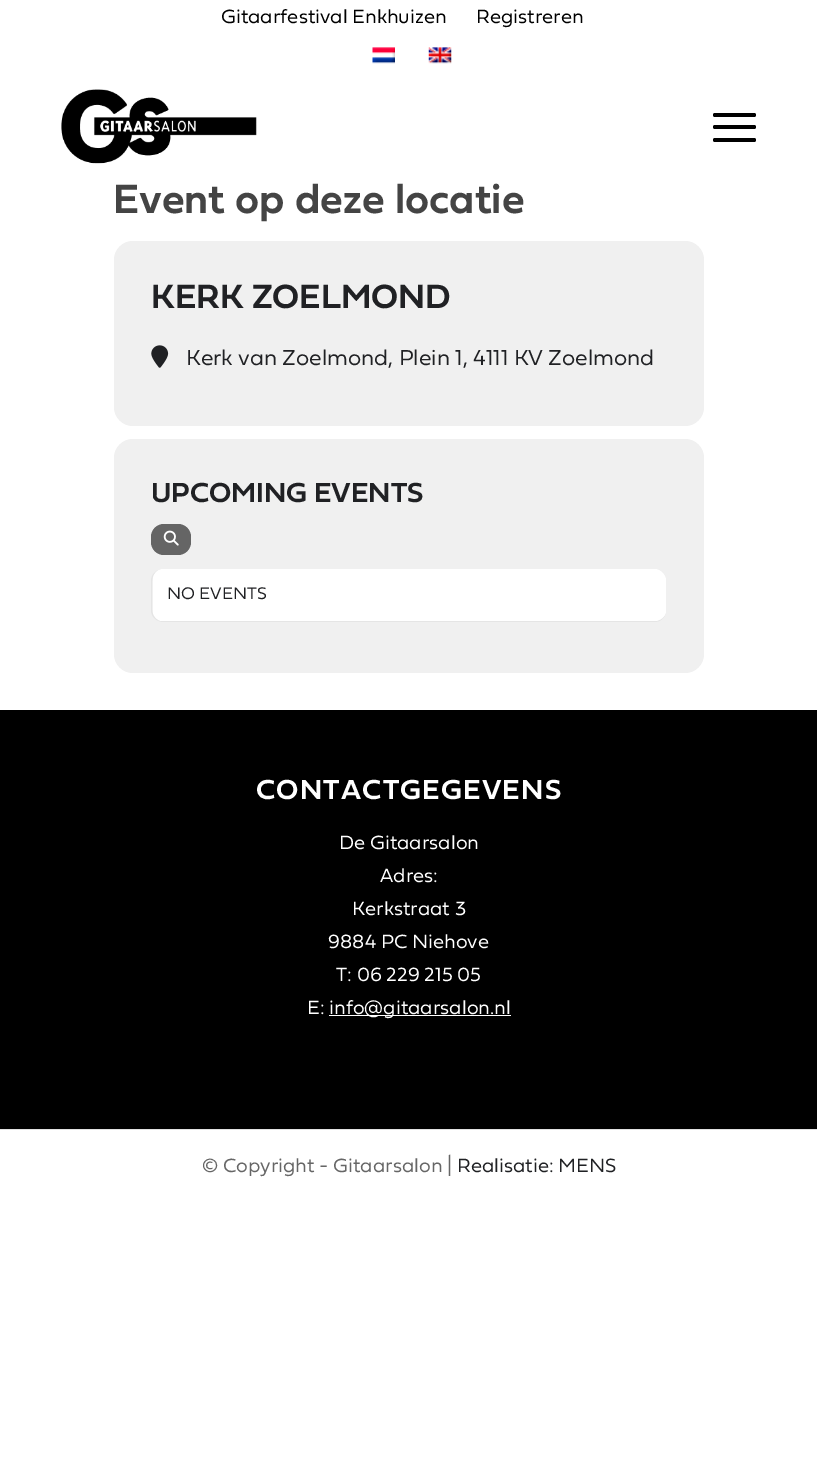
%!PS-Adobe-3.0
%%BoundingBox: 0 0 817 1473
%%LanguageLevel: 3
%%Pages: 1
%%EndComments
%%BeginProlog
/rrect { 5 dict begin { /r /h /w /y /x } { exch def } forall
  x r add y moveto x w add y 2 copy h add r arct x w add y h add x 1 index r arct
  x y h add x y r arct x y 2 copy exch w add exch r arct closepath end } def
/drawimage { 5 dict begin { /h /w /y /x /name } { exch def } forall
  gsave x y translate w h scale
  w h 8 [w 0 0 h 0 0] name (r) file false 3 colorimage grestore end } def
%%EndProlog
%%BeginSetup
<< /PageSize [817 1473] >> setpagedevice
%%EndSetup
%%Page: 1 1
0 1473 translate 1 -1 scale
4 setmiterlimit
1 setgray
0 0 817 1473 rectfill
(images/1.raw) 372 47 23 17 drawimage
(images/2.raw) 428 47 24 17 drawimage
(images/3.raw) 61 89 196 75 drawimage
0 setgray
713 125 43 4 2 rrect fill
713 113 43 4 2 rrect fill
713 138 43 4 2 rrect fill
0.941 setgray
114 241 590 185 19 rrect fill
(images/4.raw) 151 345 18 23 drawimage
114 439 590 234 19 rrect fill
0.396 setgray
151 524 40 31 13 rrect fill
(images/5.raw) 163 530 16 16 drawimage
0.898 setgray
newpath 164 569 moveto 654 569 lineto 661 569 666 574 666 581 curveto 666 610 lineto 666 617 661 622 654 622 curveto 164 622 lineto 157 622 151 617 151 610 curveto 151 581 lineto 151 574 157 569 164 569 curveto closepath 164 569 moveto 654 569 lineto 661 569 666 574 666 581 curveto 666 610 lineto 666 616 661 621 654 621 curveto 164 621 lineto 158 621 152 616 152 610 curveto 152 581 lineto 152 574 158 569 164 569 curveto closepath eofill
1 setgray
newpath 153 578 moveto 154 573 157 570 162 569 curveto 656 569 lineto 661 570 665 574 666 579 curveto 666 612 lineto 665 617 661 620 656 621 curveto 161 621 lineto 157 620 154 617 153 613 curveto closepath fill
0 setgray
0 710 817 419 rectfill
1 setgray
329 1015 182 1 rectfill
0.882 setgray
0 1129 817 1 rectfill
/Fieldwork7-Light [20 0 0 -20 0 0] selectfont
0 setgray
221 23 moveto (Gitaarfestival Enkhuizen) show
476 23 moveto (Registreren) show
/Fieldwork-SemiBold [42.5 0 0 -42.5 0 0] selectfont
0.267 setgray
113 213 moveto (Event op deze locatie) show
/Fieldwork-SemiBold [35 0 0 -35 0 0] selectfont
0.125 0.129 0.141 setrgbcolor
151 308 moveto (KERK ZOELMOND) show
/Fieldwork7-Light [22.5 0 0 -22.5 0 0] selectfont
186 365 moveto (Kerk van Zoelmond, Plein 1, 4111 KV Zoelmond) show
/Fieldwork-SemiBold [28.75 0 0 -28.75 0 0] selectfont
151 502 moveto (UPCOMING EVENTS) show
/Fieldwork7-Light [17.5 0 0 -17.5 0 0] selectfont
167 599 moveto (NO EVENTS) show
/Fieldwork-SemiBold [28.75 0 0 -28.75 0 0] selectfont
1 setgray
256 799 moveto 1.25 0 (CONTACTGEGEVENS) ashow
/Fieldwork7-Light [20 0 0 -20 0 0] selectfont
339 849 moveto (De Gitaarsalon) show
380 882 moveto (Adres:) show
352 915 moveto (Kerkstraat 3) show
328 948 moveto (9884 PC Niehove) show
336 981 moveto (T: 06 229 215 05) show
307 1014 moveto (E:) show
329 1014 moveto (info@gitaarsalon.nl) show
0.4 setgray
202 1172 moveto (© Copyright - Gitaarsalon |) show
0.125 0.129 0.141 setrgbcolor
457 1172 moveto (Realisatie: MENS) show
showpage
%%EOF
